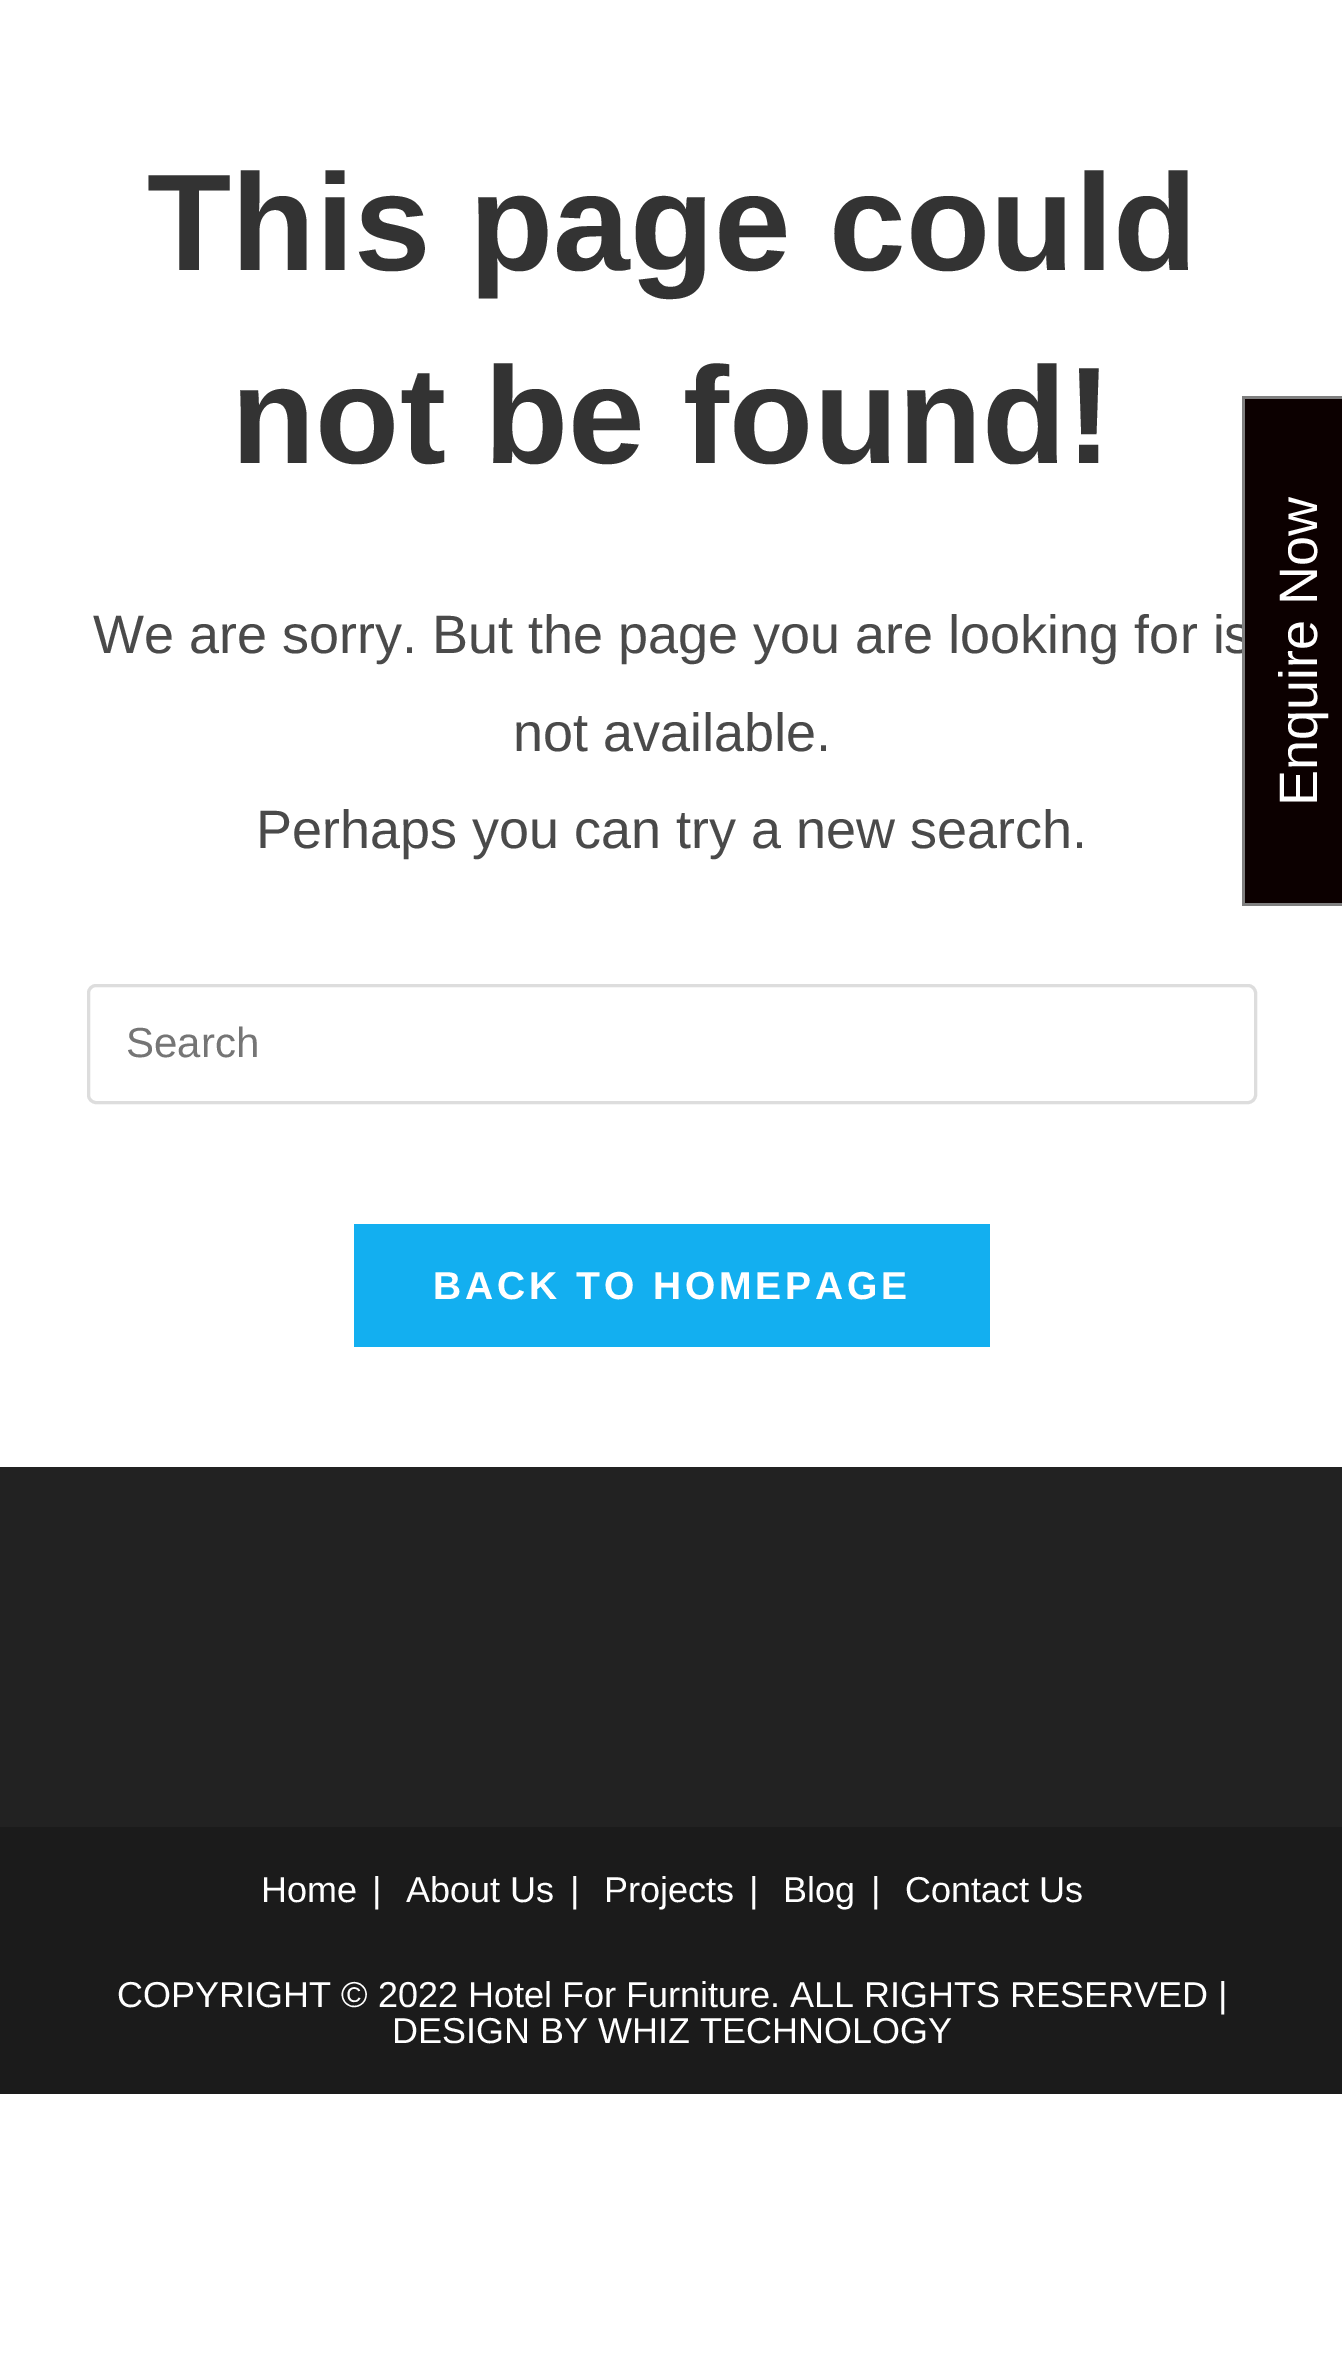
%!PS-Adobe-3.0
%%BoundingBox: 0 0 1342 2363
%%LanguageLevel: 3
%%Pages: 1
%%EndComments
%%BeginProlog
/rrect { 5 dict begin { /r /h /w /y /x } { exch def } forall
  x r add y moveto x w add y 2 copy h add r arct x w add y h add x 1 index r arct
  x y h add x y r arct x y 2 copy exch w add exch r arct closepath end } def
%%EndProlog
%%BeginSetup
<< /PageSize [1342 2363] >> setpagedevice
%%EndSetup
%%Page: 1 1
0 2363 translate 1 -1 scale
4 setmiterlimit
1 setgray
0 0 1342 2363 rectfill
0.867 setgray
3 setlinewidth
88.5 985.5 1167 117 7.5 rrect stroke
0.075 0.686 0.941 setrgbcolor
354 1224 636 123 rectfill
0.133 setgray
0 1467 1342 360 rectfill
0.106 setgray
0 1827 1342 267 rectfill
/LiberationSans-Bold [138 0 0 -138 0 0] selectfont
0.2 setgray
147 270 moveto (This page could) show
231 463 moveto (not be found!) show
/LiberationSans-Regular [54 0 0 -54 0 0] selectfont
0.29 setgray
93 653 moveto (We are sorry. But the page you are looking for is) show
513 751 moveto (not available.) show
256 848 moveto (Perhaps you can try a new search.) show
/LiberationSans-Regular [42 0 0 -42 0 0] selectfont
0.459 setgray
126 1057 moveto (Search) show
/LiberationSans-Bold [39 0 0 -39 0 0] selectfont
1 setgray
433 1299 moveto 3.9 0 (BACK TO HOMEPAGE) ashow
/LiberationSans-Regular [36 0 0 -36 0 0] selectfont
261 1902 moveto (Home) show
372 1902 moveto (|) show
406 1902 moveto (About Us) show
570 1902 moveto (|) show
604 1902 moveto (Projects) show
749 1902 moveto (|) show
783 1902 moveto (Blog) show
871 1902 moveto (|) show
905 1902 moveto (Contact Us) show
117 2007 moveto (COPYRIGHT © 2022 Hotel For Furniture. ALL RIGHTS RESERVED |) show
392 2043 moveto (DESIGN BY WHIZ TECHNOLOGY) show
0.047 0 0 setrgbcolor
1245 399 97 504 rectfill
0.498 setgray
1242 396 3 510 rectfill
1242 396 100 3 rectfill
1242 903 100 3 rectfill
/LiberationSans-Regular [54 0 0 -54 0 0] selectfont
1 setgray
gsave 1317 806 translate -90 rotate 0 0 moveto (Enquire Now) show grestore
showpage
%%EOF
